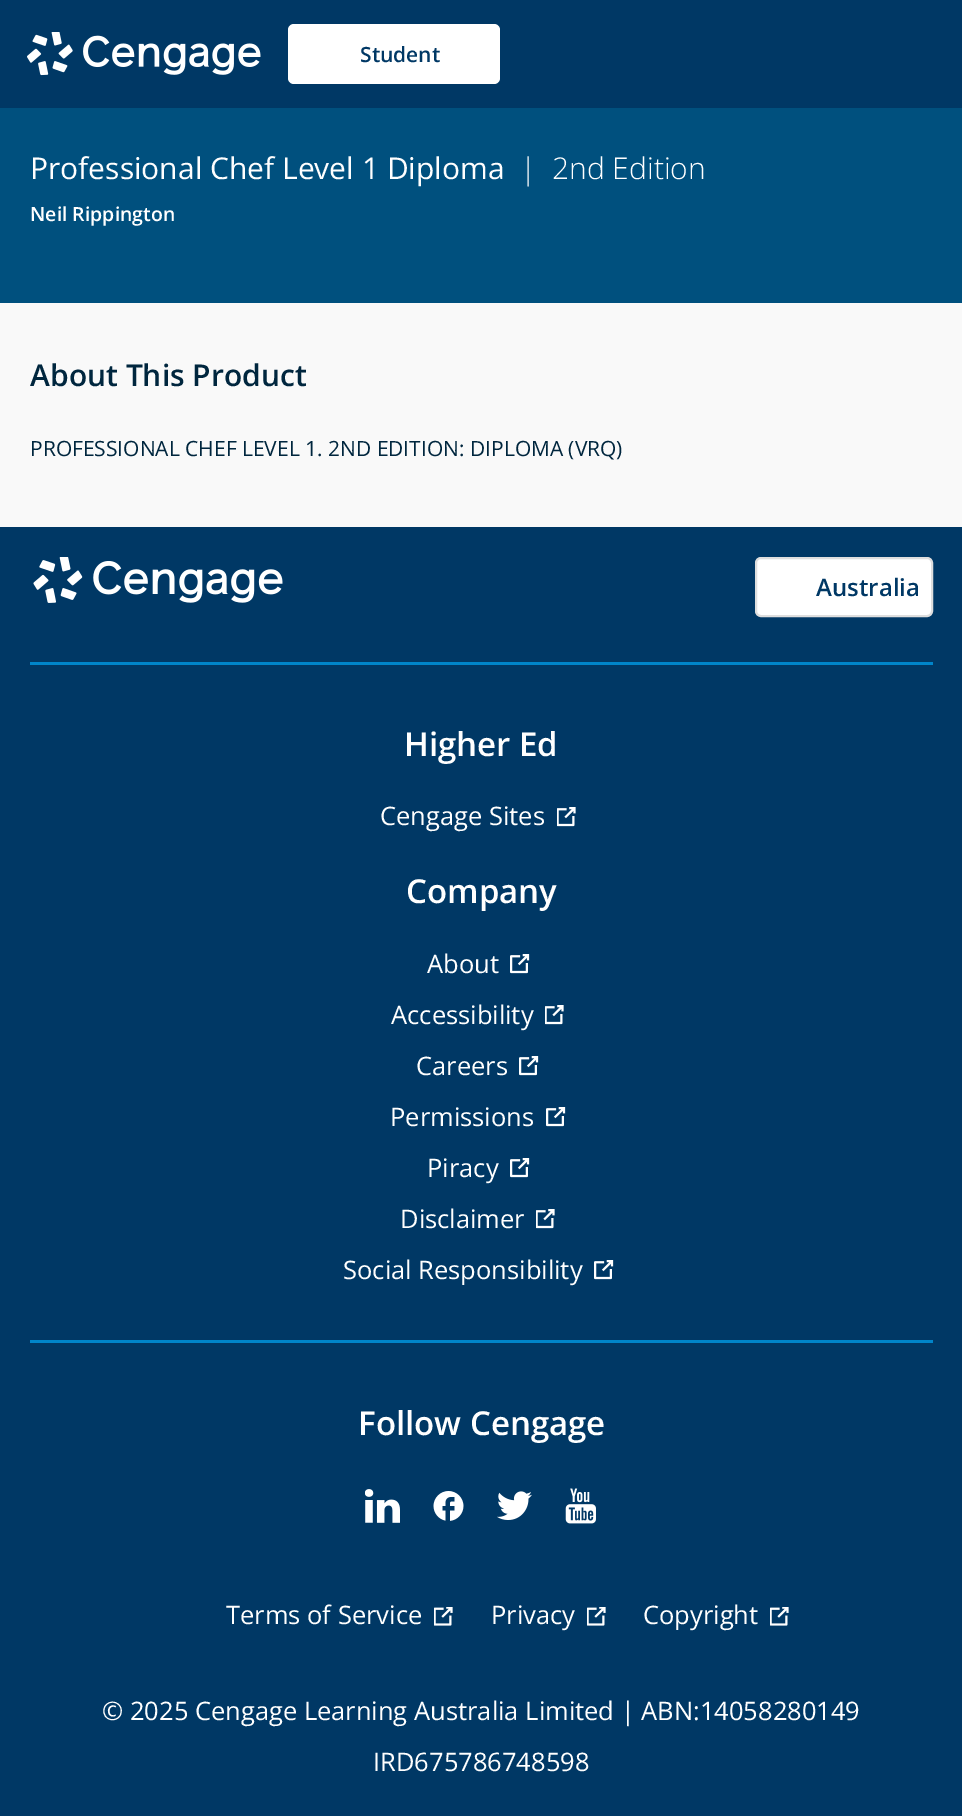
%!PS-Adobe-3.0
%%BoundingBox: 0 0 962 1816
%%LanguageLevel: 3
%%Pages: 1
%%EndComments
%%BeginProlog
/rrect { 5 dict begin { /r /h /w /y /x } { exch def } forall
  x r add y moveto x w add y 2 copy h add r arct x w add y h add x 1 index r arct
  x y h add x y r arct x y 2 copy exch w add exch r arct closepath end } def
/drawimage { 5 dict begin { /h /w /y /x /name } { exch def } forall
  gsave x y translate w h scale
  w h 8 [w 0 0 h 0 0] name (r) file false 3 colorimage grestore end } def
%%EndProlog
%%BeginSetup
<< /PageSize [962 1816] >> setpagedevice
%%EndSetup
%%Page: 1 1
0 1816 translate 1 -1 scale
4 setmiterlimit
0 0.314 0.494 setrgbcolor
0 0 962 1816 rectfill
0 0.22 0.396 setrgbcolor
0 0 962 108 rectfill
(images/1.raw) 27 32 234 44 drawimage
1 setgray
288 24 212 60 6 rrect fill
0.976 setgray
0 303 962 224 rectfill
0 0.22 0.396 setrgbcolor
0 527 962 1289 rectfill
0 0.522 0.792 setrgbcolor
30 662 903 3 rectfill
(images/2.raw) 33 557 250 46 drawimage
1 setgray
756 558 176 58 5 rrect gsave fill grestore
0.871 setgray
2 setlinewidth
stroke
0 0.522 0.792 setrgbcolor
30 1340 903 3 rectfill
(images/3.raw) 557 807 19 20 drawimage
(images/4.raw) 510 954 20 20 drawimage
(images/3.raw) 545 1005 19 20 drawimage
(images/4.raw) 519 1056 20 20 drawimage
(images/4.raw) 546 1107 20 20 drawimage
(images/4.raw) 510 1158 20 20 drawimage
(images/3.raw) 536 1209 19 20 drawimage
(images/4.raw) 594 1260 20 20 drawimage
(images/5.raw) 365 1489 35 34 drawimage
(images/6.raw) 433 1491 31 30 drawimage
(images/7.raw) 497 1491 35 29 drawimage
(images/8.raw) 565 1488 31 36 drawimage
(images/9.raw) 434 1607 19 19 drawimage
(images/9.raw) 587 1607 19 19 drawimage
(images/9.raw) 770 1607 19 19 drawimage
/OpenSans-SemiBold [21 0 0 -21 0 0] selectfont
0 0.22 0.396 setrgbcolor
360 62 moveto (Student) show
/OpenSans-Regular [30 0 0 -30 0 0] selectfont
1 setgray
30 179 moveto (Professional Chef Level 1 Diploma) show
/OpenSans-Light [30 0 0 -30 0 0] selectfont
520 179 moveto (|) show
552 179 moveto (2nd Edition) show
/OpenSans-SemiBold [19.5 0 0 -19.5 0 0] selectfont
30 221 moveto (Neil Rippington) show
/OpenSans-SemiBold [30 0 0 -30 0 0] selectfont
0 0.149 0.243 setrgbcolor
30 386 moveto (About This Product) show
/OpenSans-Regular [21 0 0 -21 0 0] selectfont
30 456 moveto (PROFESSIONAL CHEF LEVEL 1. 2ND EDITION: DIPLOMA \(VRQ\)) show
/OpenSans-SemiBold [24 0 0 -24 0 0] selectfont
0 0.22 0.396 setrgbcolor
816 596 moveto (Australia) show
/OpenSans-SemiBold [33 0 0 -33 0 0] selectfont
1 setgray
404 756 moveto (Higher Ed) show
/OpenSans-Regular [25.5 0 0 -25.5 0 0] selectfont
380 825 moveto (Cengage Sites) show
/OpenSans-SemiBold [33 0 0 -33 0 0] selectfont
406 903 moveto (Company) show
/OpenSans-Regular [25.5 0 0 -25.5 0 0] selectfont
427 973 moveto (About) show
391 1024 moveto (Accessibility) show
416 1075 moveto (Careers) show
390 1126 moveto (Permissions) show
427 1177 moveto (Piracy) show
400 1228 moveto (Disclaimer) show
343 1279 moveto (Social Responsibility) show
/OpenSans-SemiBold [33 0 0 -33 0 0] selectfont
358 1435 moveto (Follow Cengage) show
/OpenSans-Regular [25.5 0 0 -25.5 0 0] selectfont
226 1624 moveto (Terms of Service) show
491 1624 moveto (Privacy) show
643 1624 moveto (Copyright) show
102 1720 moveto (© 2025 Cengage Learning Australia Limited | ABN:14058280149) show
373 1771 moveto (IRD675786748598) show
showpage
%%EOF
